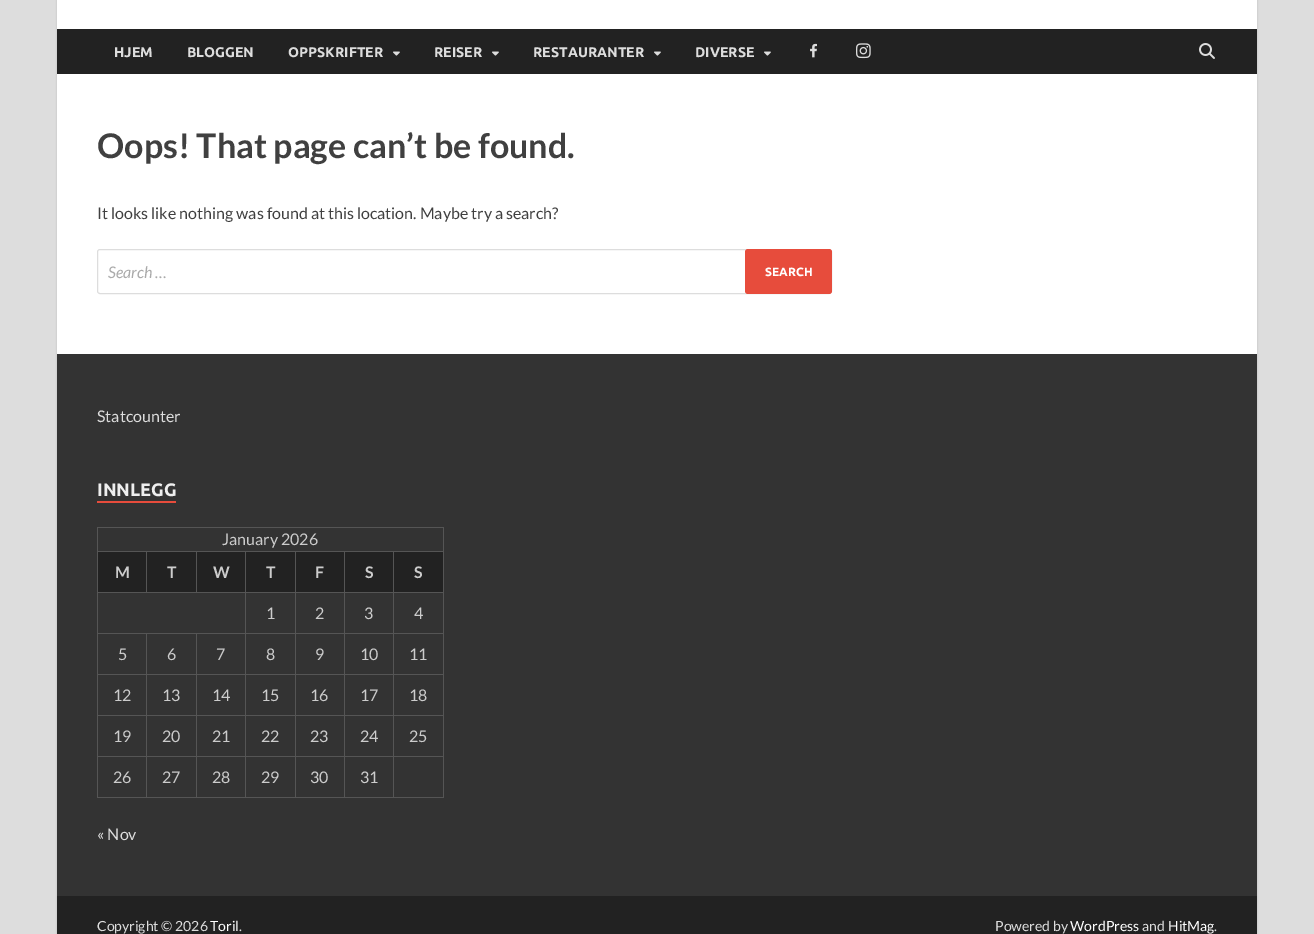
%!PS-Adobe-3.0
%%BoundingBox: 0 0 1314 934
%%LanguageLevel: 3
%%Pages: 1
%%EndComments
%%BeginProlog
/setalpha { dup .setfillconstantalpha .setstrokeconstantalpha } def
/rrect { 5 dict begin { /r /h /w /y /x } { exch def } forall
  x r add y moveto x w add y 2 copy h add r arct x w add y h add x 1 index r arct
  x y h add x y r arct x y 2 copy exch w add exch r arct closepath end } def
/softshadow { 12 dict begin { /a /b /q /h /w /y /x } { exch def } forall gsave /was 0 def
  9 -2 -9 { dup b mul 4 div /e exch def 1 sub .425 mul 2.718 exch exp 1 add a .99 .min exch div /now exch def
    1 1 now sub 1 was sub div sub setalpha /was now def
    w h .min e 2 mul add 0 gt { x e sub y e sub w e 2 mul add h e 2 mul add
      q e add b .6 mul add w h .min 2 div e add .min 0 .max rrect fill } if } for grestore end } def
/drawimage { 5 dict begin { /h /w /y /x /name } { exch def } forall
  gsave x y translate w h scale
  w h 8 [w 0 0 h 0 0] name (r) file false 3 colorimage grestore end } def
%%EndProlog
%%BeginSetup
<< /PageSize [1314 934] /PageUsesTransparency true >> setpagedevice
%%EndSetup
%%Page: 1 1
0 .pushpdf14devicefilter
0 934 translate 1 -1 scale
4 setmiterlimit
0.867 setgray
0 0 1314 934 rectfill
0.733 setgray
57 -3 1200 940 0 1 1 softshadow
1 setgray
57 0 1200 354 rectfill
0.133 setgray
57 29 1200 45 rectfill
(images/1.raw) 393 51 7 5 drawimage
(images/1.raw) 492 51 7 5 drawimage
(images/1.raw) 654 51 7 5 drawimage
(images/1.raw) 764 51 7 5 drawimage
(images/2.raw) 810 43 7 15 drawimage
(images/3.raw) 856 43 15 16 drawimage
(images/4.raw) 1199 43 16 16 drawimage
0.867 setgray
97.5 249.5 734 44 2.5 rrect stroke
0.906 0.298 0.235 setrgbcolor
745 249 87 45 3 rrect fill
0.2 setgray
57 354 1200 542 rectfill
0.906 0.298 0.235 setrgbcolor
97 501 79 2 rectfill
0.333 setgray
97 527 347 1 rectfill
443 527 1 271 rectfill
97 797 347 1 rectfill
97 527 1 271 rectfill
0.133 setgray
98 552 48 40 rectfill
0.333 setgray
393 551 51 1 rectfill
393 592 51 1 rectfill
393 633 51 1 rectfill
393 674 51 1 rectfill
393 715 51 1 rectfill
393 756 51 1 rectfill
393 756 1 42 rectfill
344 756 50 1 rectfill
393 715 1 42 rectfill
344 715 50 1 rectfill
393 674 1 42 rectfill
344 674 50 1 rectfill
393 633 1 42 rectfill
344 633 50 1 rectfill
393 592 1 42 rectfill
344 592 50 1 rectfill
393 551 1 42 rectfill
344 551 50 1 rectfill
344 756 1 42 rectfill
295 756 50 1 rectfill
344 715 1 42 rectfill
295 715 50 1 rectfill
344 674 1 42 rectfill
295 674 50 1 rectfill
344 633 1 42 rectfill
295 633 50 1 rectfill
344 592 1 42 rectfill
295 592 50 1 rectfill
344 551 1 42 rectfill
295 551 50 1 rectfill
295 756 1 42 rectfill
245 756 51 1 rectfill
295 715 1 42 rectfill
245 715 51 1 rectfill
295 674 1 42 rectfill
245 674 51 1 rectfill
295 633 1 42 rectfill
245 633 51 1 rectfill
295 592 1 42 rectfill
245 592 51 1 rectfill
295 551 1 42 rectfill
245 551 51 1 rectfill
245 756 1 42 rectfill
196 756 50 1 rectfill
245 715 1 42 rectfill
196 715 50 1 rectfill
245 674 1 42 rectfill
196 674 50 1 rectfill
245 633 1 42 rectfill
196 633 50 1 rectfill
245 592 1 42 rectfill
97 592 149 1 rectfill
245 551 1 42 rectfill
196 551 50 1 rectfill
196 551 1 42 rectfill
146 551 51 1 rectfill
146 551 1 42 rectfill
97 551 50 1 rectfill
0.133 setgray
147 552 49 40 rectfill
197 552 48 40 rectfill
246 552 49 40 rectfill
296 552 48 40 rectfill
345 552 48 40 rectfill
394 552 49 40 rectfill
0.333 setgray
196 756 1 42 rectfill
146 756 51 1 rectfill
196 715 1 42 rectfill
146 715 51 1 rectfill
196 674 1 42 rectfill
146 674 51 1 rectfill
196 633 1 42 rectfill
146 633 51 1 rectfill
146 756 1 42 rectfill
97 756 50 1 rectfill
146 715 1 42 rectfill
97 715 50 1 rectfill
146 674 1 42 rectfill
97 674 50 1 rectfill
146 633 1 42 rectfill
97 633 50 1 rectfill
0.133 setgray
57 896 1200 38 rectfill
/Ubuntu-Bold [14 0 0 -14 0 0] selectfont
0.867 setgray
114 57 moveto (HJEM) show
187 57 moveto (BLOGGEN) show
288 57 moveto (OPPSKRIFTER) show
434 57 moveto (REISER) show
533 57 moveto (RESTAURANTER) show
695 57 moveto (DIVERSE) show
/Lato-Bold [34 0 0 -34 0 0] selectfont
0.251 setgray
97 158 moveto (Oops! That page can’t be found.) show
/Lato-Regular [16 0 0 -16 0 0] selectfont
97 219 moveto (It looks like nothing was found at this location. Maybe try a search?) show
/Lato-Italic [16 0 0 -16 0 0] selectfont
0.667 setgray
108 278 moveto (Search …) show
/Ubuntu-Bold [12 0 0 -12 0 0] selectfont
1 setgray
765 276 moveto (SEARCH) show
/Lato-Regular [16 0 0 -16 0 0] selectfont
0.867 setgray
97 422 moveto (Statcounter) show
/Ubuntu-Bold [18 0 0 -18 0 0] selectfont
0.933 setgray
97 496 moveto (INNLEGG) show
/Lato-Regular [16 0 0 -16 0 0] selectfont
0.8 setgray
222 545 moveto (January 2026) show
/Lato-Bold [16 0 0 -16 0 0] selectfont
115 578 moveto (M) show
167 578 moveto (T) show
213 578 moveto (W) show
266 578 moveto (T) show
315 578 moveto (F) show
365 578 moveto (S) show
414 578 moveto (S) show
/Lato-Regular [16 0 0 -16 0 0] selectfont
266 619 moveto (1) show
315 619 moveto (2) show
364 619 moveto (3) show
414 619 moveto (4) show
118 660 moveto (5) show
167 660 moveto (6) show
216 660 moveto (7) show
266 660 moveto (8) show
315 660 moveto (9) show
360 660 moveto (10) show
409 660 moveto (11) show
113 701 moveto (12) show
162 701 moveto (13) show
212 701 moveto (14) show
261 701 moveto (15) show
310 701 moveto (16) show
360 701 moveto (17) show
409 701 moveto (18) show
113 742 moveto (19) show
162 742 moveto (20) show
212 742 moveto (21) show
261 742 moveto (22) show
310 742 moveto (23) show
360 742 moveto (24) show
409 742 moveto (25) show
113 783 moveto (26) show
162 783 moveto (27) show
212 783 moveto (28) show
261 783 moveto (29) show
310 783 moveto (30) show
360 783 moveto (31) show
0.867 setgray
97 840 moveto (« Nov) show
/Lato-Regular [14 0 0 -14 0 0] selectfont
97 931 moveto (Copyright © 2026) show
1 setgray
210 931 moveto (Toril) show
0.867 setgray
239 931 moveto (.) show
995 931 moveto (Powered by) show
1 setgray
1070 931 moveto (WordPress) show
0.867 setgray
1142 931 moveto (and) show
1 setgray
1168 931 moveto (HitMag) show
0.867 setgray
1214 931 moveto (.) show
.poppdf14devicefilter showpage
%%EOF
